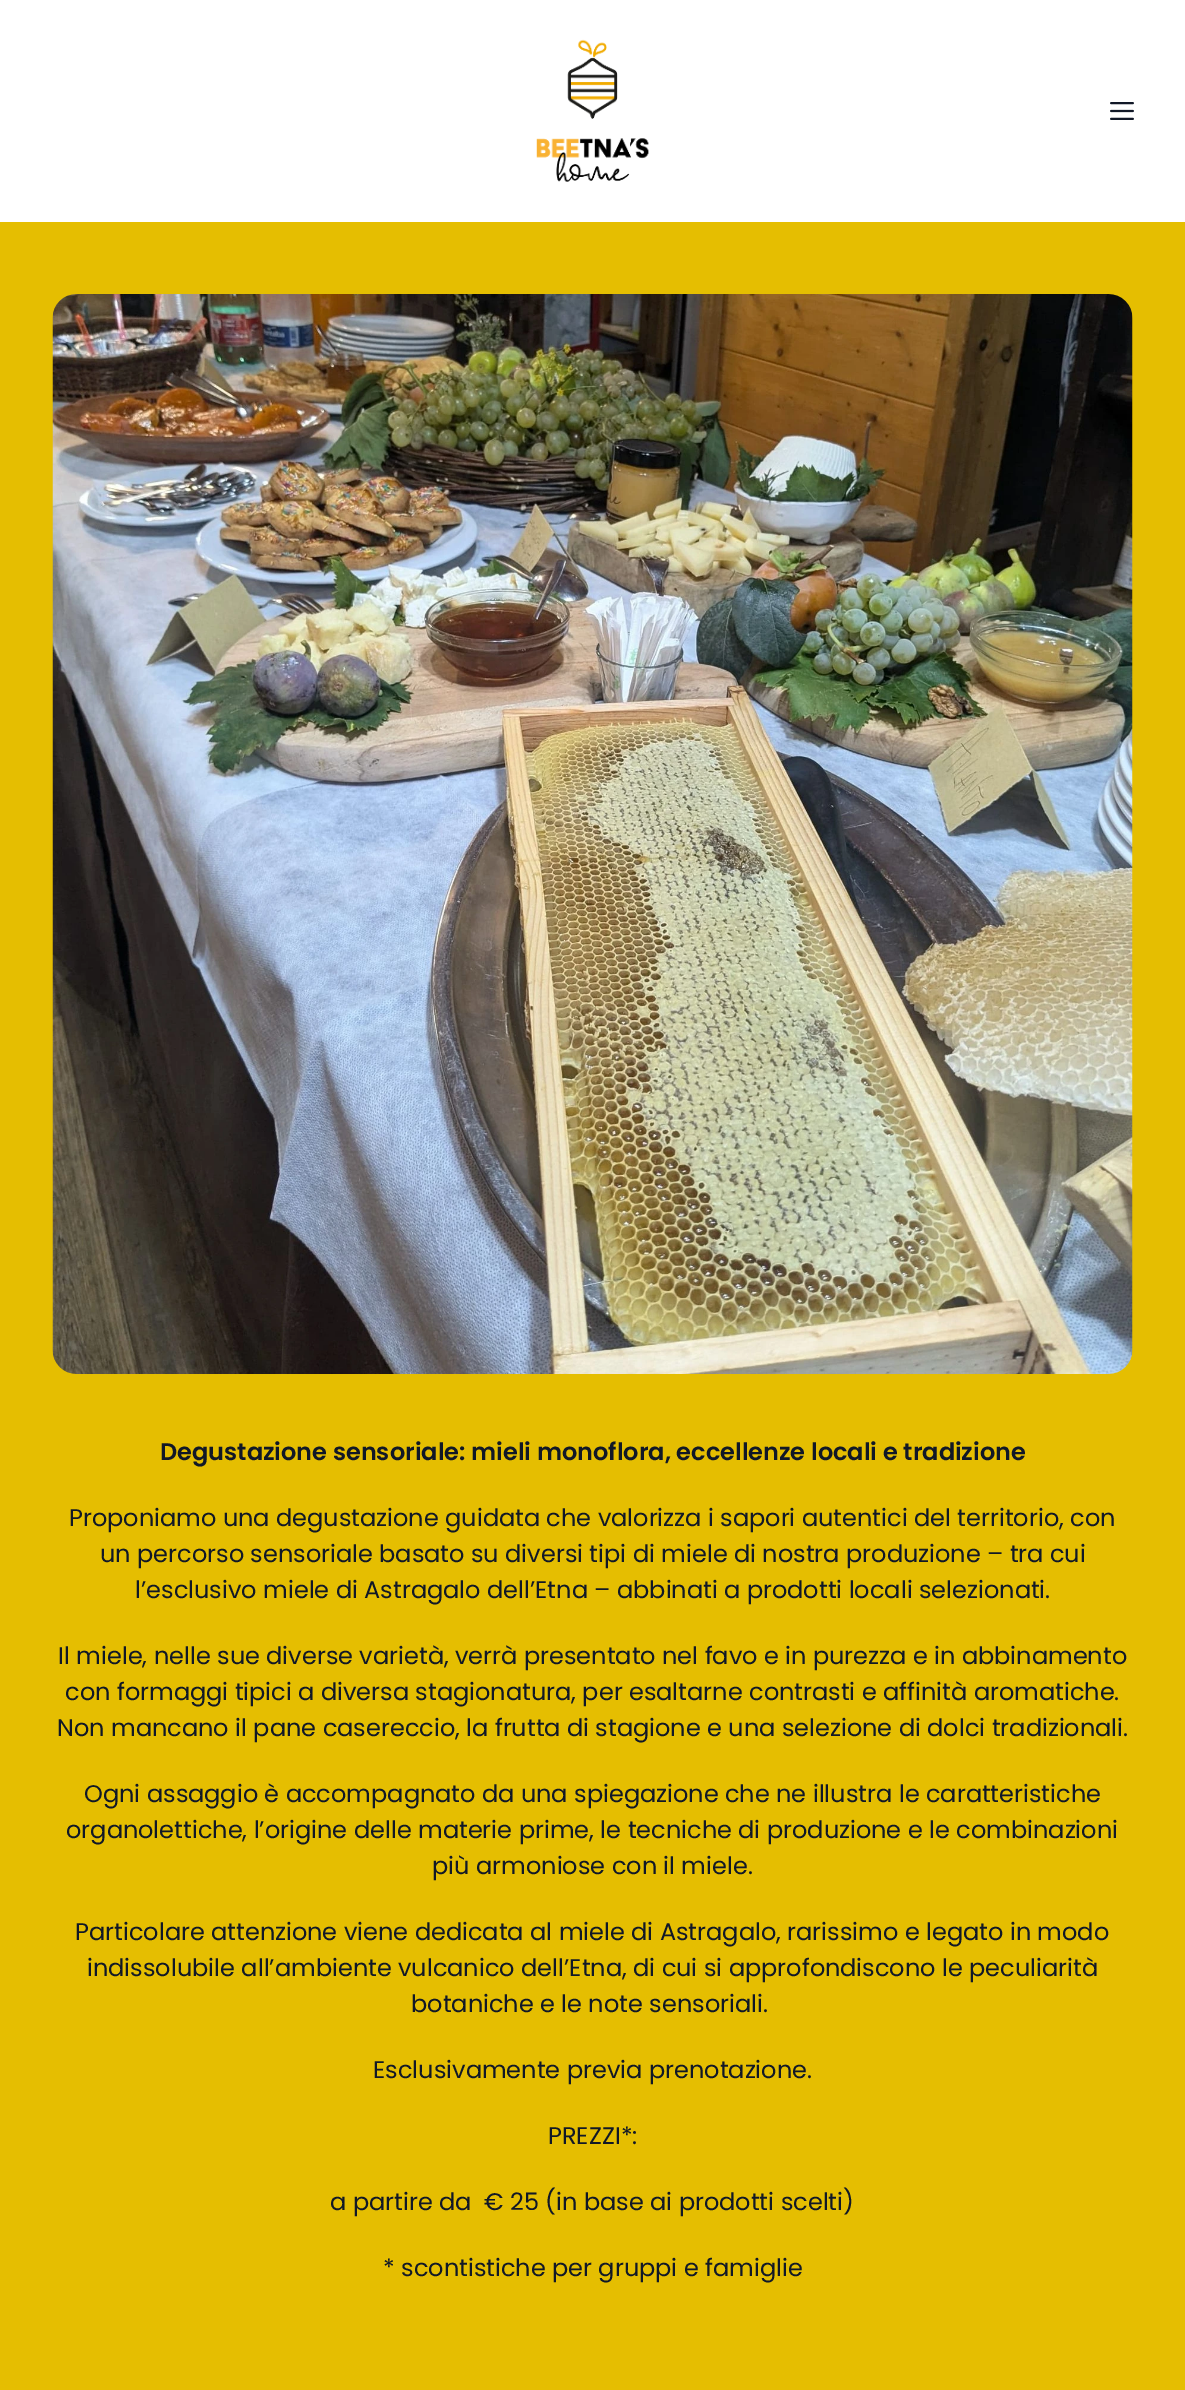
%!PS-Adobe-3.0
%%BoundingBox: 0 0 1185 2390
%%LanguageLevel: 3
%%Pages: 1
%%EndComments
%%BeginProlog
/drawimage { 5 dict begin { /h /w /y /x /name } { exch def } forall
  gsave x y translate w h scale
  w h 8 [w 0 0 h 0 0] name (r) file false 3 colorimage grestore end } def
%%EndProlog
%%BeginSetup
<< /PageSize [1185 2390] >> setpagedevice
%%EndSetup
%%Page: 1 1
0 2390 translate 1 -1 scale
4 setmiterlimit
1 setgray
0 0 1185 2390 rectfill
(images/1.raw) 536 39 113 143 drawimage
(images/2.raw) 1110 102 24 18 drawimage
0.898 0.745 0.004 setrgbcolor
0 222 1185 2168 rectfill
(images/3.raw) 52 294 1081 1080 drawimage
/Poppins-SemiBold [24 0 0 -24 0 0] selectfont
0.067 0.094 0.153 setrgbcolor
160 1460 moveto (Degustazione sensoriale: mieli monoflora, eccellenze locali e tradizione) show
/Poppins-Regular [24 0 0 -24 0 0] selectfont
69 1526 moveto (Proponiamo una degustazione guidata che valorizza i sapori autentici del territorio, con) show
100 1562 moveto (un percorso sensoriale basato su diversi tipi di miele di nostra produzione – tra cui) show
135 1598 moveto (l’esclusivo miele di Astragalo dell’Etna – abbinati a prodotti locali selezionati.) show
58 1664 moveto (Il miele, nelle sue diverse varietà, verrà presentato nel favo e in purezza e in abbinamento) show
65 1700 moveto (con formaggi tipici a diversa stagionatura, per esaltarne contrasti e affinità aromatiche.) show
57 1736 moveto (Non mancano il pane casereccio, la frutta di stagione e una selezione di dolci tradizionali.) show
84 1802 moveto (Ogni assaggio è accompagnato da una spiegazione che ne illustra le caratteristiche) show
66 1838 moveto (organolettiche, l’origine delle materie prime, le tecniche di produzione e le combinazioni) show
432 1874 moveto (più armoniose con il miele.) show
75 1940 moveto (Particolare attenzione viene dedicata al miele di Astragalo, rarissimo e legato in modo) show
87 1976 moveto (indissolubile all’ambiente vulcanico dell’Etna, di cui si approfondiscono le peculiarità) show
411 2012 moveto (botaniche e le note sensoriali.) show
373 2078 moveto (Esclusivamente previa prenotazione.) show
548 2144 moveto (PREZZI*:) show
330 2210 moveto (a partire da  € 25 \(in base ai prodotti scelti\)) show
383 2276 moveto (* scontistiche per gruppi e famiglie) show
showpage
%%EOF
